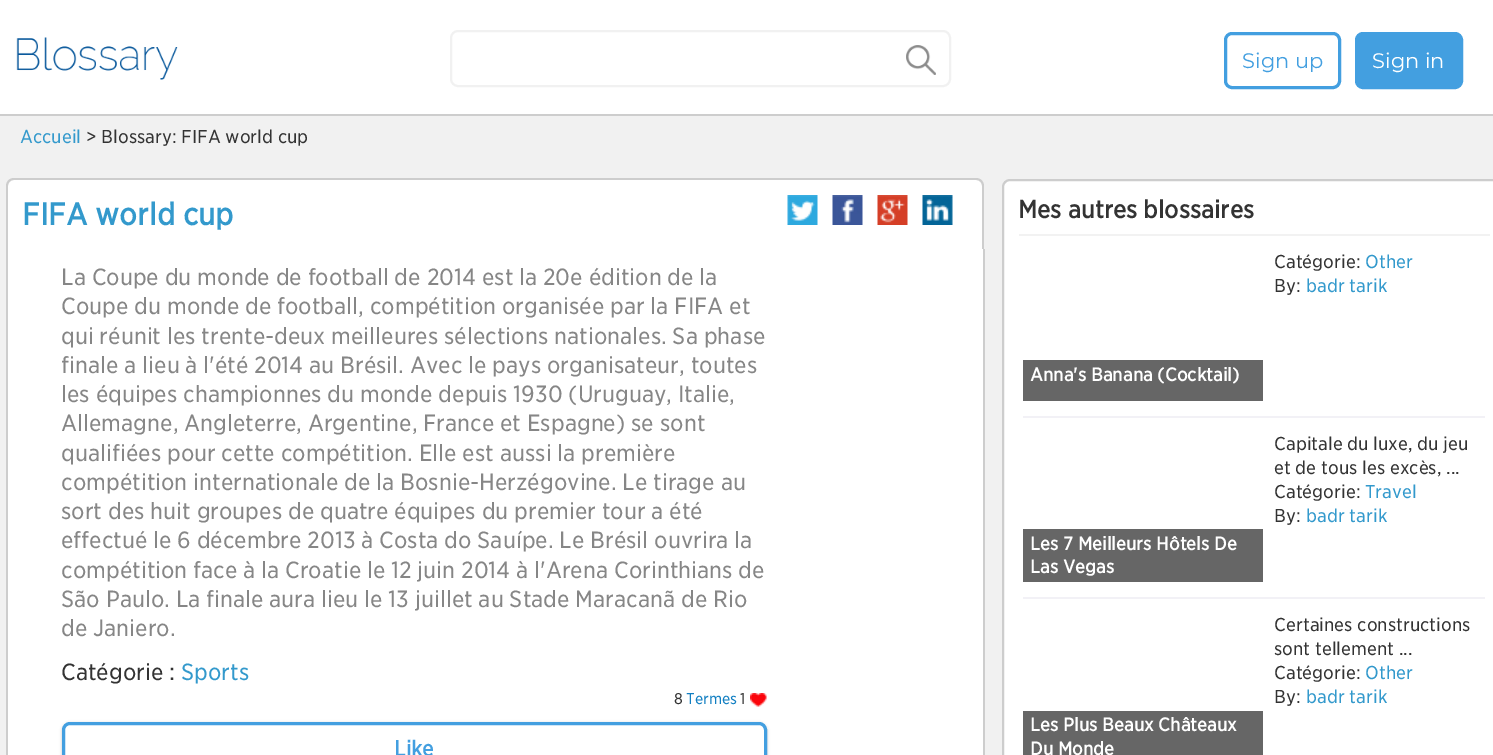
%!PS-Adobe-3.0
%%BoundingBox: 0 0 1493 755
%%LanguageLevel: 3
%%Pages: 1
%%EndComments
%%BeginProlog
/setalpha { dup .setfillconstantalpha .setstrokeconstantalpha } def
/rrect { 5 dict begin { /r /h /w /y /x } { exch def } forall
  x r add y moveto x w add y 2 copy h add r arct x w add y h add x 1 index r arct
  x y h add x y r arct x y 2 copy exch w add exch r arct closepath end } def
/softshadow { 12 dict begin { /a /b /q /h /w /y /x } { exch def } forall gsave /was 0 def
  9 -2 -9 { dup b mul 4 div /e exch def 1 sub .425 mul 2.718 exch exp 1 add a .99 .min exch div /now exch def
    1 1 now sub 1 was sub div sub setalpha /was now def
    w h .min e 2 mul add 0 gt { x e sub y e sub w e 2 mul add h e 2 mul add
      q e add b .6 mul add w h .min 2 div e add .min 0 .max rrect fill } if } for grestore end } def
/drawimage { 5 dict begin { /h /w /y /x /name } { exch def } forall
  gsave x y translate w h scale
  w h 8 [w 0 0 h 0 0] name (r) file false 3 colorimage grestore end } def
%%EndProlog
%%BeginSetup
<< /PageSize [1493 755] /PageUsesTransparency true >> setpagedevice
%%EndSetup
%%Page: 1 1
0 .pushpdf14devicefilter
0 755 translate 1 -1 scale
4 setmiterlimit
0.945 setgray
0 0 1493 755 rectfill
1 setgray
0 0 1493 114 rectfill
0.804 setgray
0 114 1493 2 rectfill
(images/1.raw) 16 37 162 43 drawimage
0.945 setgray
2 setlinewidth
451 31 499 55 7 rrect stroke
(images/2.raw) 906 45 30 30 drawimage
0.263 0.624 0.878 setrgbcolor
3 setlinewidth
1225.5 33.5 114 54 6.5 rrect stroke
1356.5 33.5 105 54 6.5 rrect gsave fill grestore
stroke
1 setgray
newpath 14 179 moveto 976 179 lineto 980.5 179 984 182.5 984 187 curveto 984 249 lineto 6 249 lineto 6 187 lineto 6 182.5 9.5 179 14 179 curveto closepath fill
0.804 setgray
newpath 14 178 moveto 976 178 lineto 981 178 984 182 984 186 curveto 984 249 lineto 6 249 lineto 6 186 lineto 6 182 9 178 14 178 curveto closepath 14 180 moveto 976 180 lineto 980 180 982 183 982 186 curveto 982 249 lineto 8 249 lineto 8 186 lineto 8 183 10 180 14 180 curveto closepath eofill
(images/3.raw) 787 195 31 30 drawimage
(images/4.raw) 832 195 31 30 drawimage
(images/5.raw) 877 195 31 30 drawimage
(images/6.raw) 922 195 31 30 drawimage
1 setgray
8 249 975 506 rectfill
0.804 setgray
983 249 2 506 rectfill
6 249 2 506 rectfill
(images/7.raw) 750 693 17 14 drawimage
0 setgray
62 723 705 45 8 1.5 0.2 softshadow
1 setgray
63.5 723.5 702 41 6.5 rrect gsave fill grestore
0.263 0.624 0.878 setrgbcolor
stroke
1 setgray
1003 180 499 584 7 rrect gsave fill grestore
0.804 setgray
2 setlinewidth
stroke
0.949 setgray
1019 234 471 2 rectfill
0.949 0.945 0.965 setrgbcolor
1023 416 462 2 rectfill
0.4 setgray
1023 360 240 41 rectfill
0.949 0.945 0.965 setrgbcolor
1023 597 462 2 rectfill
0.4 setgray
1023 529 240 53 rectfill
1023 711 240 44 rectfill
/Montserrat-Regular [21 0 0 -21 0 0] selectfont
0.263 0.624 0.878 setrgbcolor
1242 68 moveto (Sign up) show
1 setgray
1372 68 moveto (Sign in) show
/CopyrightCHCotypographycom-Light [18 0 0 -18 0 0] selectfont
0.2 0.6 0.8 setrgbcolor
20 143 moveto (Accueil) show
0.2 setgray
86 143 moveto (> Blossary: FIFA world cup) show
/CopyrightCHCotypographycom-Bold [30 0 0 -30 0 0] selectfont
0.2 0.6 0.8 setrgbcolor
22 225 moveto (FIFA world cup) show
/CopyrightCHCotypographycom-Light [22.5 0 0 -22.5 0 0] selectfont
0.525 setgray
61 285 moveto (La Coupe du monde de football de 2014 est la 20e édition de la) show
61 314 moveto (Coupe du monde de football, compétition organisée par la FIFA et) show
61 344 moveto (qui réunit les trente-deux meilleures sélections nationales. Sa phase) show
61 373 moveto (finale a lieu à l'été 2014 au Brésil. Avec le pays organisateur, toutes) show
61 402 moveto (les équipes championnes du monde depuis 1930 \(Uruguay, Italie,) show
61 431 moveto (Allemagne, Angleterre, Argentine, France et Espagne\) se sont) show
61 461 moveto (qualifiées pour cette compétition. Elle est aussi la première) show
61 490 moveto (compétition internationale de la Bosnie-Herzégovine. Le tirage au) show
61 519 moveto (sort des huit groupes de quatre équipes du premier tour a été) show
61 548 moveto (effectué le 6 décembre 2013 à Costa do Sauípe. Le Brésil ouvrira la) show
61 578 moveto (compétition face à la Croatie le 12 juin 2014 à l'Arena Corinthians de) show
61 607 moveto (São Paulo. La finale aura lieu le 13 juillet au Stade Maracanã de Rio) show
61 636 moveto (de Janiero.) show
0.2 setgray
61 680 moveto (Catégorie :) show
0.2 0.6 0.8 setrgbcolor
181 680 moveto (Sports) show
/CopyrightCHCotypographycom-Light [15 0 0 -15 0 0] selectfont
0.2 setgray
674 704 moveto (8) show
0.071 0.498 0.761 setrgbcolor
686 704 moveto (Termes) show
0.2 setgray
740 704 moveto (1) show
/CopyrightCHCotypographycom-Bold [21 0 0 -21 0 0] selectfont
0.263 0.624 0.878 setrgbcolor
394 756 moveto (Like) show
/CopyrightCHCotypographycom-Bold [24 0 0 -24 0 0] selectfont
0.2 setgray
1018 218 moveto (Mes autres blossaires) show
/CopyrightCHCotypographycom-Light [18 0 0 -18 0 0] selectfont
1274 268 moveto (Catégorie:) show
0.2 0.6 0.8 setrgbcolor
1365 268 moveto (Other) show
0.2 setgray
1274 292 moveto (By:) show
0.2 0.6 0.8 setrgbcolor
1306 292 moveto (badr tarik) show
/CopyrightCHCotypographycom-Bold [18 0 0 -18 0 0] selectfont
1 setgray
1030 381 moveto (Anna's Banana \(Cocktail\)) show
/CopyrightCHCotypographycom-Light [18 0 0 -18 0 0] selectfont
0.2 setgray
1274 450 moveto (Capitale du luxe, du jeu) show
1274 474 moveto (et de tous les excès, ...) show
1274 498 moveto (Catégorie:) show
0.2 0.6 0.8 setrgbcolor
1365 498 moveto (Travel) show
0.2 setgray
1274 522 moveto (By:) show
0.2 0.6 0.8 setrgbcolor
1306 522 moveto (badr tarik) show
/CopyrightCHCotypographycom-Bold [18 0 0 -18 0 0] selectfont
1 setgray
1030 550 moveto (Les 7 Meilleurs Hôtels De) show
1030 573 moveto (Las Vegas) show
/CopyrightCHCotypographycom-Light [18 0 0 -18 0 0] selectfont
0.2 setgray
1274 631 moveto (Certaines constructions) show
1274 655 moveto (sont tellement ...) show
1274 679 moveto (Catégorie:) show
0.2 0.6 0.8 setrgbcolor
1365 679 moveto (Other) show
0.2 setgray
1274 703 moveto (By:) show
0.2 0.6 0.8 setrgbcolor
1306 703 moveto (badr tarik) show
/CopyrightCHCotypographycom-Bold [18 0 0 -18 0 0] selectfont
1 setgray
1030 731 moveto (Les Plus Beaux Châteaux) show
1030 755 moveto (Du Monde) show
.poppdf14devicefilter showpage
%%EOF
